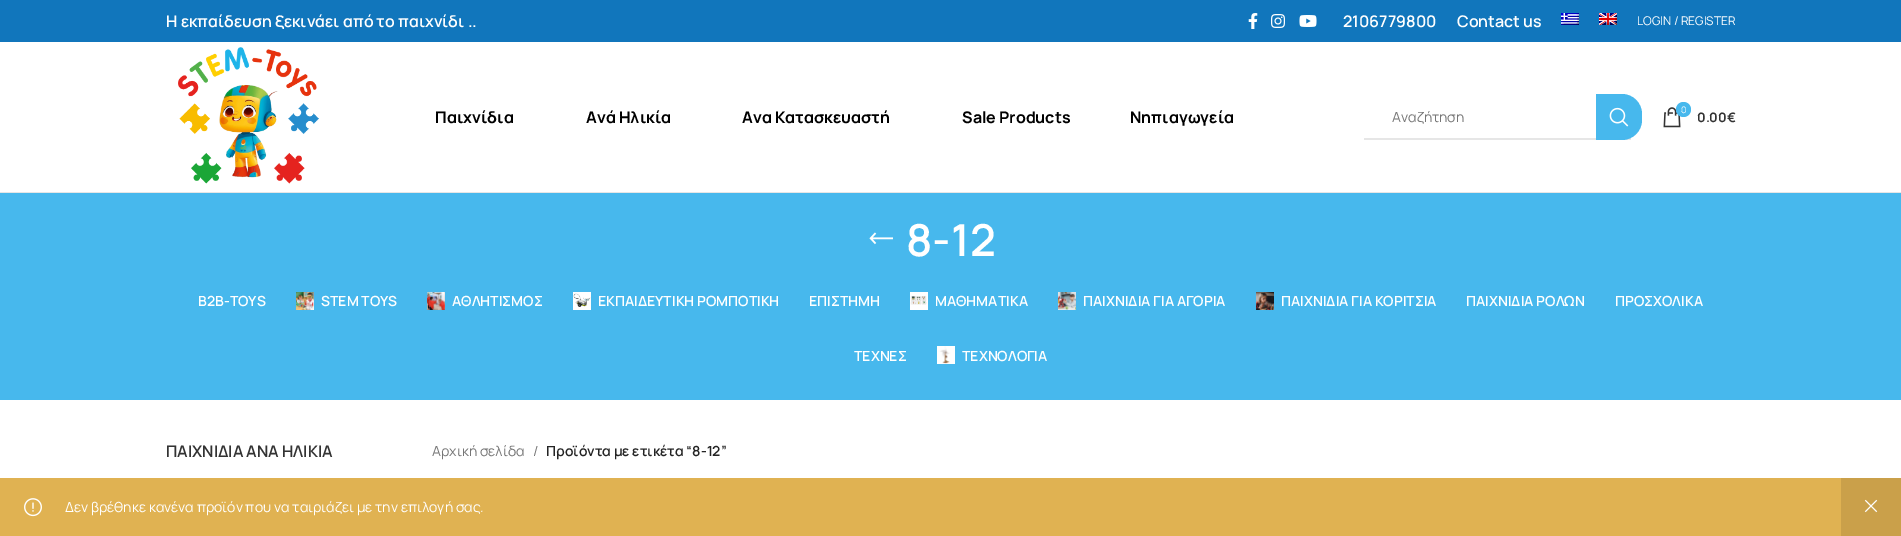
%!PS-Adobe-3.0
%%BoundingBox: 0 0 1901 536
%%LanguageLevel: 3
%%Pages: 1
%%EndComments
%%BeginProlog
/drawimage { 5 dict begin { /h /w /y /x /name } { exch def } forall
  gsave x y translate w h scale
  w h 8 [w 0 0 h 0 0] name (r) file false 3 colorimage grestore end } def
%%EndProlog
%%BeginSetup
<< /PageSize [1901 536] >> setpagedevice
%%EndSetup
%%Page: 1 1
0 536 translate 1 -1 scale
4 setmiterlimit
1 setgray
0 0 1901 536 rectfill
0.067 0.463 0.737 setrgbcolor
0 0 1901 42 rectfill
(images/1.raw) 1248 13 10 16 drawimage
(images/2.raw) 1271 14 14 14 drawimage
(images/3.raw) 1299 15 18 12 drawimage
(images/4.raw) 1561 13 18 12 drawimage
(images/5.raw) 1599 13 18 12 drawimage
0.902 setgray
0 192 1901 1 rectfill
(images/6.raw) 178 47 141 137 drawimage
1364 138 267 2 rectfill
0.278 0.722 0.929 setrgbcolor
newpath 1596 94 moveto 1622 94 lineto 1633 94 1642 103 1642 114 curveto 1642 120 lineto 1642 131 1633 140 1622 140 curveto 1596 140 lineto closepath fill
(images/7.raw) 1609 107 20 20 drawimage
(images/8.raw) 1663 107 18 21 drawimage
newpath 1683.5 109.5 7.5 0 360 arc closepath fill
0 193 1901 207 rectfill
(images/9.raw) 869 232 24 13 drawimage
(images/10.raw) 296 292 18 18 drawimage
(images/11.raw) 427 292 18 18 drawimage
(images/12.raw) 573 292 18 18 drawimage
(images/13.raw) 910 292 18 18 drawimage
(images/14.raw) 1058 292 18 18 drawimage
(images/15.raw) 1256 292 18 18 drawimage
(images/16.raw) 937 346 18 18 drawimage
0.878 0.698 0.322 setrgbcolor
0 478 1841 58 rectfill
(images/17.raw) 24 498 18 19 drawimage
0.792 0.627 0.29 setrgbcolor
1841 478 60 58 rectfill
(images/18.raw) 1864 499 14 14 drawimage
/Manrope-SemiBold [16 0 0 -16 0 0] selectfont
1 setgray
166 27 moveto (Η εκπαίδευση ξεκινάει από το παιχνίδι ..) show
1343 27 moveto (2106779800) show
1457 27 moveto (Contact us) show
/Manrope-Regular [12 0 0 -12 0 0] selectfont
1637 25 moveto (LOGIN / REGISTER) show
/Manrope-Bold [16 0 0 -16 0 0] selectfont
0 setgray
435 123 moveto (Παιχνίδια) show
586 123 moveto (Ανά Ηλικία) show
742 123 moveto (Ανα Κατασκευαστή) show
962 123 moveto (Sale Products) show
1130 123 moveto (Νηπιαγωγεία) show
/Manrope-Regular [14 0 0 -14 0 0] selectfont
0.463 setgray
1392 122 moveto (Αναζήτηση) show
/Manrope-Regular [9 0 0 -9 0 0] selectfont
1 setgray
1681 113 moveto (0) show
/Manrope-Bold [13 0 0 -13 0 0] selectfont
0.2 setgray
1697 122 moveto (0.00€) show
/Manrope-SemiBold [44 0 0 -44 0 0] selectfont
1 setgray
906 256 moveto (8-12) show
/Manrope-SemiBold [14 0 0 -14 0 0] selectfont
198 306 moveto (B2B-TOYS) show
321 306 moveto (STEM TOYS) show
452 306 moveto (ΑΘΛΗΤΙΣΜΟΣ) show
598 306 moveto (ΕΚΠΑΙΔΕΥΤΙΚΗ ΡΟΜΠΟΤΙΚΗ) show
809 306 moveto (ΕΠΙΣΤΗΜΗ) show
935 306 moveto (ΜΑΘΗΜΑΤΙΚΑ) show
1083 306 moveto (ΠΑΙΧΝΙΔΙΑ ΓΙΑ ΑΓΟΡΙΑ) show
1281 306 moveto (ΠΑΙΧΝΙΔΙΑ ΓΙΑ ΚΟΡΙΤΣΙΑ) show
1466 306 moveto (ΠΑΙΧΝΙΔΙΑ ΡΟΛΩΝ) show
1615 306 moveto (ΠΡΟΣΧΟΛΙΚΑ) show
854 361 moveto (ΤΕΧΝΕΣ) show
962 361 moveto (ΤΕΧΝΟΛΟΓΙΑ) show
/Manrope-Regular [14 0 0 -14 0 0] selectfont
0.463 setgray
432 456 moveto (Αρχική σελίδα) show
533 456 moveto (/) show
/Manrope-SemiBold [14 0 0 -14 0 0] selectfont
0.141 setgray
546 456 moveto (Προϊόντα με ετικέτα “8-12”) show
/Manrope-Regular [14 0 0 -14 0 0] selectfont
1 setgray
65 512 moveto (Δεν βρέθηκε κανένα προϊόν που να ταιριάζει με την επιλογή σας.) show
/Manrope-SemiBold [16 0 0 -16 0 0] selectfont
0.2 setgray
166 457 moveto (ΠΑΙΧΝΙΔΙΑ ΑΝΑ ΗΛΙΚΙΑ) show
showpage
%%EOF
